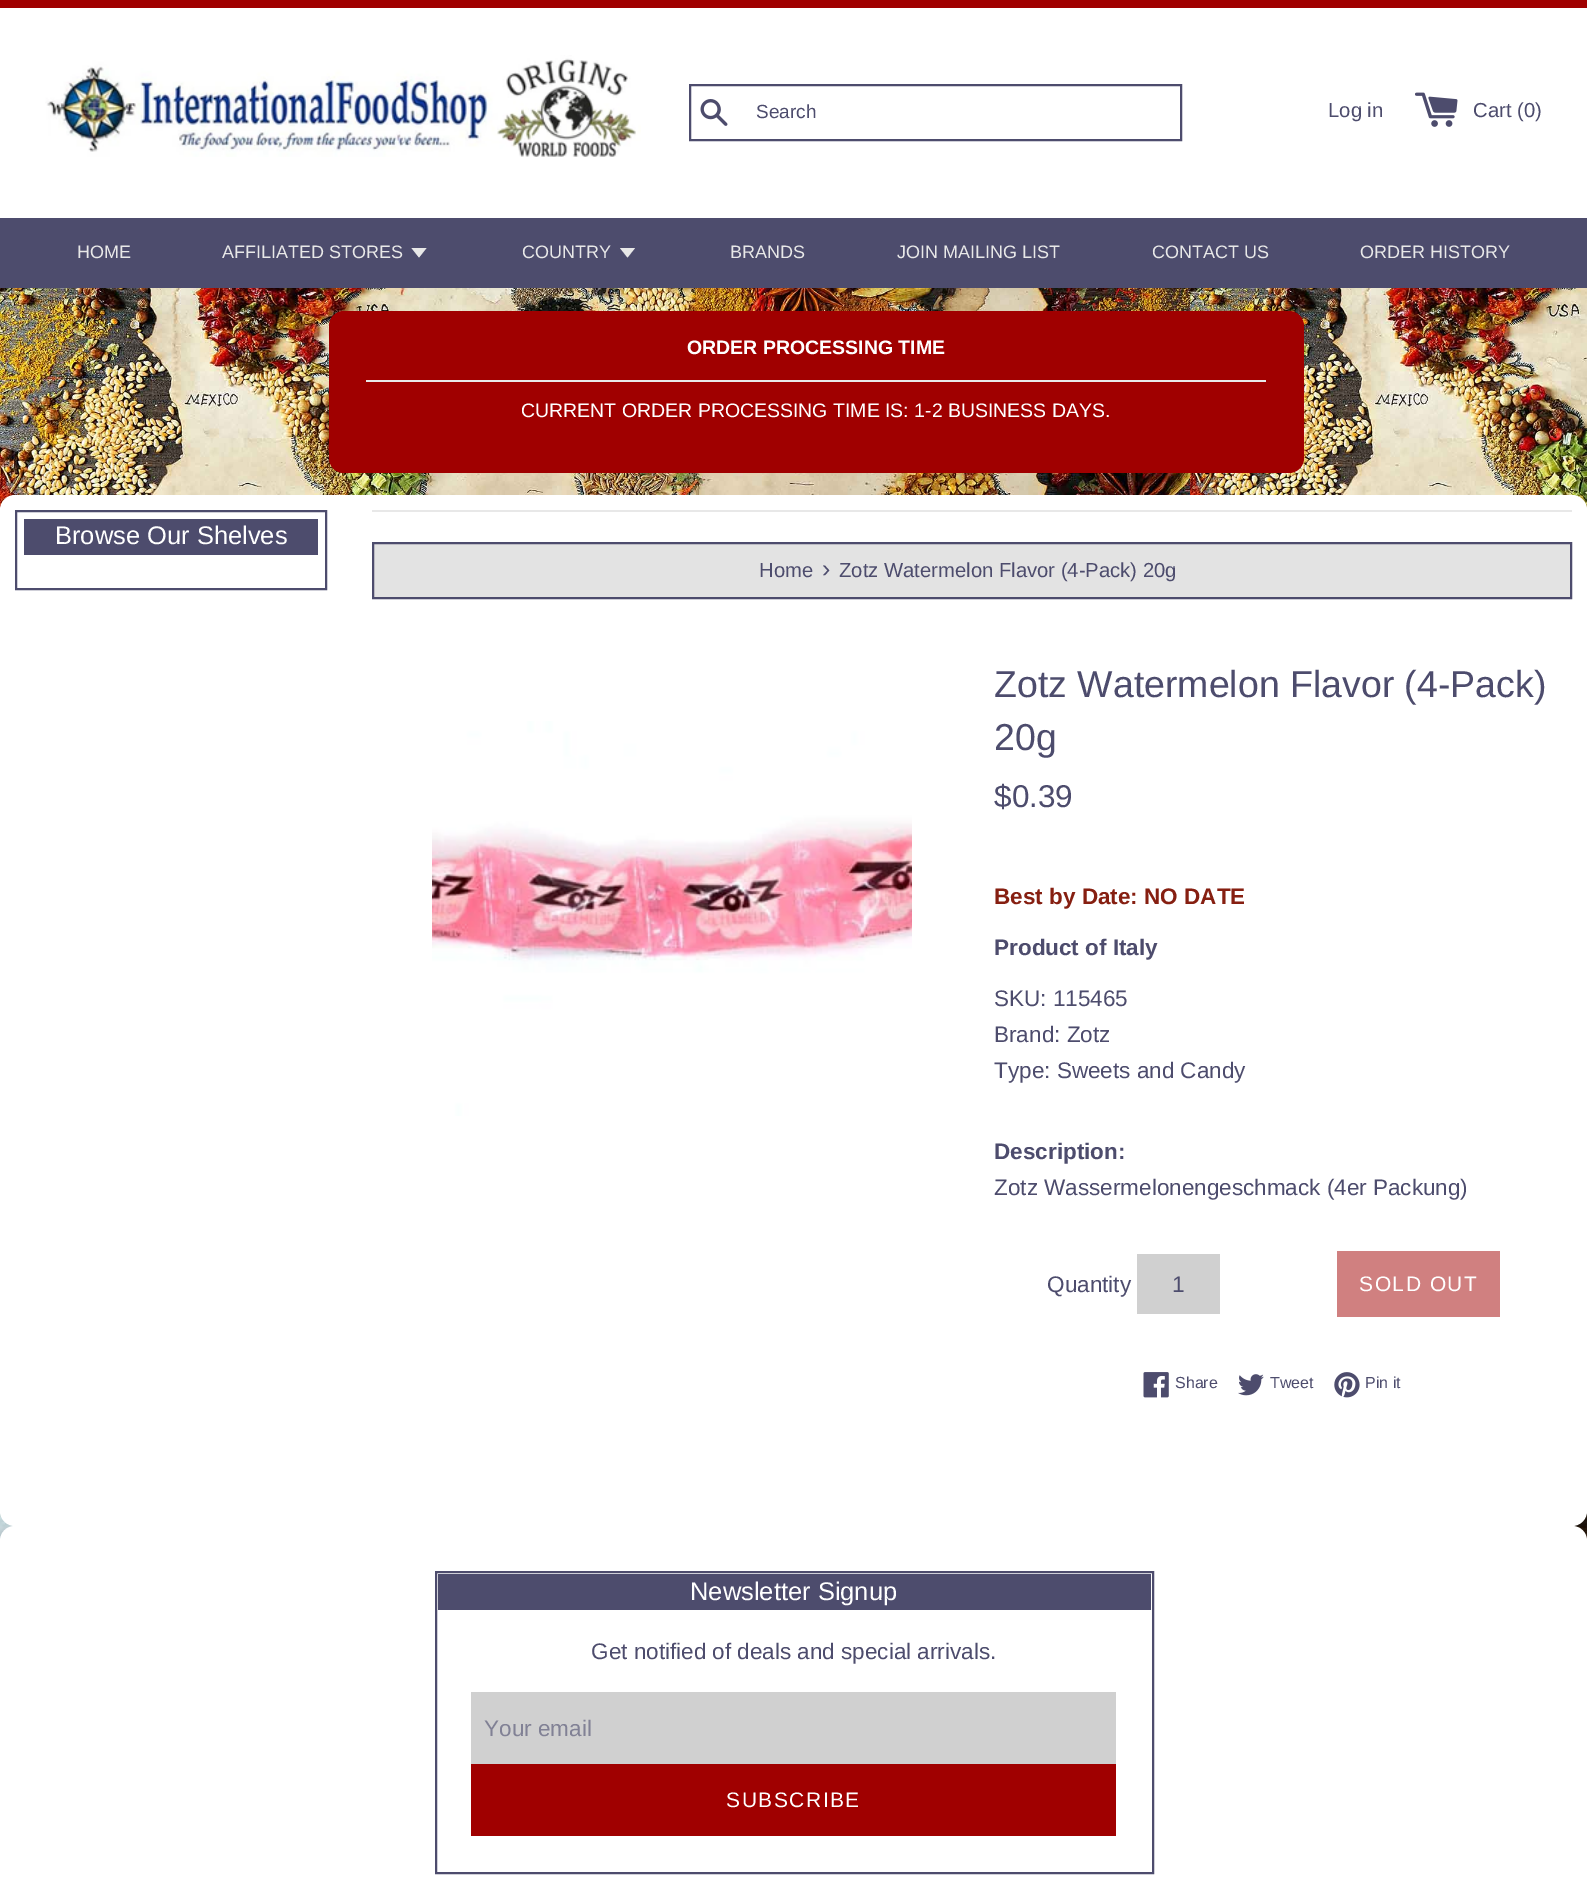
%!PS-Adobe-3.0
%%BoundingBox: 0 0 1587 1892
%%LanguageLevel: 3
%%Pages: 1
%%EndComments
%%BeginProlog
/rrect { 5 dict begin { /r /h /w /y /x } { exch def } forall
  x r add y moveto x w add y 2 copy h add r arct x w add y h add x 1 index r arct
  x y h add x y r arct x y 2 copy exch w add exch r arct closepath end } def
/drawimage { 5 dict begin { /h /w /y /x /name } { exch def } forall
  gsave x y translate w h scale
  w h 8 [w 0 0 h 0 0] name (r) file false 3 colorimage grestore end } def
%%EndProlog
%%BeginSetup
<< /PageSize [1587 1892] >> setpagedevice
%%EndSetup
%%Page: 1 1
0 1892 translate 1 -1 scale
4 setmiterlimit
1 setgray
0 0 1587 1892 rectfill
(images/1.raw) 0 288 1587 1253 drawimage
0.627 0 0 setrgbcolor
0 0 1587 8 rectfill
(images/2.raw) 45 55 596 102 drawimage
0.302 0.298 0.427 setrgbcolor
2 setlinewidth
690 85 491 55 rectstroke
(images/3.raw) 700 99 28 27 drawimage
(images/4.raw) 1415 92 43 35 drawimage
0 218 1587 70 rectfill
0.91 setgray
newpath 411.5 248 moveto 419 257.5 lineto 426.5 248 lineto closepath fill
newpath 620 248 moveto 627.5 257.5 lineto 635 248 lineto closepath fill
0.627 0 0 setrgbcolor
329 311 975 162 15 rrect fill
0.91 setgray
366 380 900 2 rectfill
1 setgray
0 495 1587 1031 15 rrect fill
0.302 0.298 0.427 setrgbcolor
16 511 310 78 rectstroke
24 519 294 36 rectfill
0.91 setgray
372 510 1200 2 rectfill
0.89 setgray
newpath 373 543 moveto 1571 543 lineto 1571 598 lineto 373 598 lineto closepath gsave fill grestore
0.302 0.298 0.427 setrgbcolor
stroke
(images/5.raw) 432 721 480 395 drawimage
0.816 setgray
1137 1254 83 60 rectfill
0.816 0.502 0.502 setrgbcolor
1337 1251 163 66 rectfill
(images/6.raw) 1143 1372 26 26 drawimage
(images/7.raw) 1238 1374 26 22 drawimage
(images/8.raw) 1334 1372 26 26 drawimage
1 setgray
newpath 15 1526 moveto 1572 1526 lineto 1580.5 1526 1587 1532.5 1587 1541 curveto 1587 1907 lineto 0 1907 lineto 0 1541 lineto 0 1532.5 6.5 1526 15 1526 curveto closepath fill
0.302 0.298 0.427 setrgbcolor
436 1572 717 301 rectstroke
438 1574 713 36 rectfill
0.816 setgray
471 1692 645 72 rectfill
0.627 0 0 setrgbcolor
471 1764 645 72 rectfill
/LiberationSans-Regular [19 0 0 -19 0 0] selectfont
0.302 0.298 0.427 setrgbcolor
756 118 moveto (Search) show
/LiberationSans-Regular [20.25 0 0 -20.25 0 0] selectfont
1328 117 moveto (Log in) show
1473 117 moveto (Cart \(0\)) show
/LiberationSans-Regular [18 0 0 -18 0 0] selectfont
0.91 setgray
77 258 moveto (HOME) show
222 258 moveto (AFFILIATED STORES) show
522 258 moveto (COUNTRY) show
730 258 moveto (BRANDS) show
897 258 moveto (JOIN MAILING LIST) show
1152 258 moveto (CONTACT US) show
1360 258 moveto (ORDER HISTORY) show
/LiberationSans-Bold [19.5 0 0 -19.5 0 0] selectfont
1 setgray
687 354 moveto (ORDER PROCESSING TIME) show
/LiberationSans-Regular [19.5 0 0 -19.5 0 0] selectfont
521 417 moveto (CURRENT ORDER PROCESSING TIME IS: 1-2 BUSINESS DAYS.) show
/LiberationSans-Regular [25.5 0 0 -25.5 0 0] selectfont
55 544 moveto (Browse Our Shelves) show
/LiberationSans-Regular [20.25 0 0 -20.25 0 0] selectfont
0.302 0.298 0.427 setrgbcolor
759 577 moveto (Home) show
/LiberationSans-Regular [25 0 0 -25 0 0] selectfont
822 577 moveto (›) show
/LiberationSans-Regular [20.25 0 0 -20.25 0 0] selectfont
839 577 moveto (Zotz Watermelon Flavor \(4-Pack\) 20g) show
/LiberationSans-Regular [37.5 0 0 -37.5 0 0] selectfont
994 697 moveto (Zotz Watermelon Flavor \(4-Pack\)) show
994 750 moveto (20g) show
/LiberationSans-Regular [31.5 0 0 -31.5 0 0] selectfont
994 807 moveto ($0.39) show
/LiberationSans-Bold [22.5 0 0 -22.5 0 0] selectfont
0.525 0.122 0.067 setrgbcolor
994 904 moveto (Best by Date: NO DATE) show
0.302 0.298 0.427 setrgbcolor
994 955 moveto (Product of Italy) show
/LiberationSans-Regular [22.5 0 0 -22.5 0 0] selectfont
994 1006 moveto (SKU: 115465) show
994 1042 moveto (Brand: Zotz) show
994 1078 moveto (Type: Sweets and Candy) show
/LiberationSans-Bold [22.5 0 0 -22.5 0 0] selectfont
994 1159 moveto (Description:) show
/LiberationSans-Regular [22.5 0 0 -22.5 0 0] selectfont
994 1195 moveto (Zotz Wassermelonengeschmack \(4er Packung\)) show
1047 1292 moveto (Quantity) show
1172 1292 moveto (1) show
/LiberationSans-Regular [21 0 0 -21 0 0] selectfont
1 setgray
1359 1291 moveto 1.5 0 (SOLD OUT) ashow
/LiberationSans-Regular [16 0 0 -16 0 0] selectfont
0.302 0.298 0.427 setrgbcolor
1175 1388 moveto (Share) show
1270 1388 moveto (Tweet) show
1365 1388 moveto (Pin it) show
/LiberationSans-Regular [25.5 0 0 -25.5 0 0] selectfont
1 setgray
690 1600 moveto (Newsletter Signup) show
/LiberationSans-Regular [22.5 0 0 -22.5 0 0] selectfont
0.302 0.298 0.427 setrgbcolor
591 1659 moveto (Get notified of deals and special arrivals.) show
0.506 0.506 0.584 setrgbcolor
484 1736 moveto (Your email) show
/LiberationSans-Regular [21 0 0 -21 0 0] selectfont
1 setgray
726 1807 moveto 1.5 0 (SUBSCRIBE) ashow
showpage
%%EOF
